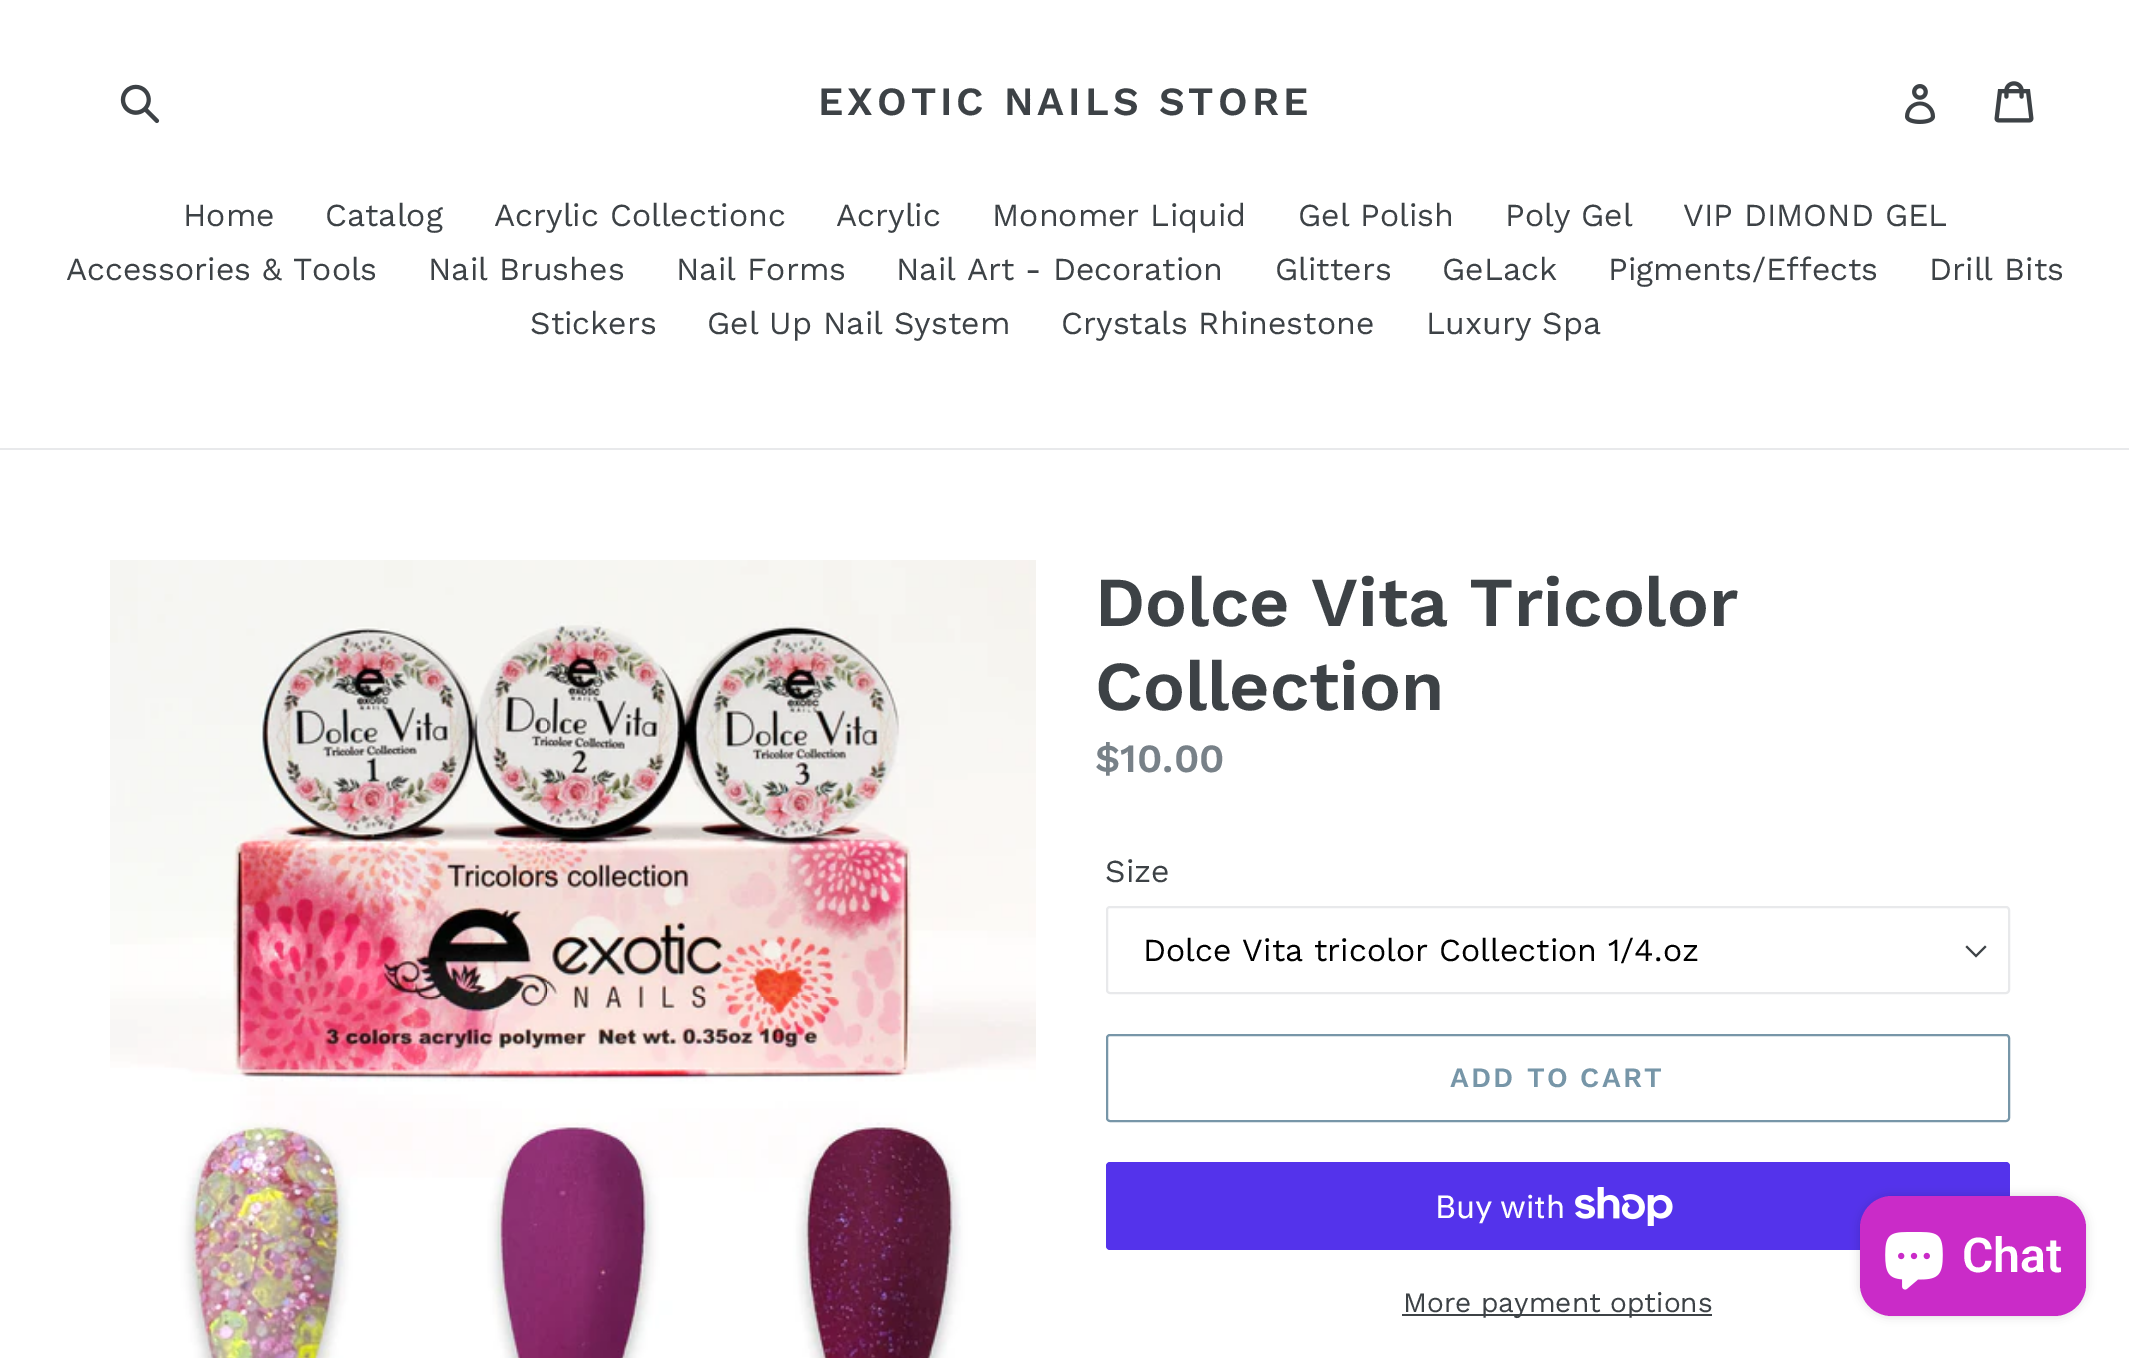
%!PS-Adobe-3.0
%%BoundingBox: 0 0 2129 1358
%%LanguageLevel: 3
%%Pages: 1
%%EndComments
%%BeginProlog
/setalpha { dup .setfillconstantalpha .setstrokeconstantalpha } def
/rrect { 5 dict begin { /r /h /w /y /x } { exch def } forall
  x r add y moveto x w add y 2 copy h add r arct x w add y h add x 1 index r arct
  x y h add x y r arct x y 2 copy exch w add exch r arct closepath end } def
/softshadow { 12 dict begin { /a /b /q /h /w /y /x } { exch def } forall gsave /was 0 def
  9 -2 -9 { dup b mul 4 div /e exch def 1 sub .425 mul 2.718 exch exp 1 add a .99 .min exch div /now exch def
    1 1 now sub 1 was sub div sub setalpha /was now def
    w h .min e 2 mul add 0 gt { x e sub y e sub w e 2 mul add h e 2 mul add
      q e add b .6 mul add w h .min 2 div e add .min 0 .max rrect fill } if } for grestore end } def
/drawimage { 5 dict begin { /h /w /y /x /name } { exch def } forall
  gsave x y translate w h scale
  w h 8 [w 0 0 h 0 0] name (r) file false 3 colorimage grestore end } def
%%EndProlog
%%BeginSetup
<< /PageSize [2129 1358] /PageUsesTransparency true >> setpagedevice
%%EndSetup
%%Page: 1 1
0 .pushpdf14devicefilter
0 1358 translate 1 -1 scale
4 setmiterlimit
1 setgray
0 0 2129 1358 rectfill
(images/1.raw) 120 84 40 40 drawimage
(images/2.raw) 1905 84 31 40 drawimage
(images/3.raw) 1994 81 40 42 drawimage
0.91 0.914 0.922 setrgbcolor
0 448 2129 2 rectfill
(images/4.raw) 110 560 926 798 drawimage
0.239 0.259 0.275 setrgbcolor
newpath 1976 957.5 moveto 1965.5 947 lineto 1967 945.5 lineto 1976 954.5 lineto 1985 945.5 lineto 1986.5 947 lineto closepath fill
0.91 0.914 0.922 setrgbcolor
2 setlinewidth
1107 907 902 86 3 rrect stroke
0.467 0.588 0.659 setrgbcolor
1107 1035 902 86 3 rrect stroke
0.329 0.2 0.922 setrgbcolor
1106 1162 904 88 4 rrect fill
(images/5.raw) 1575 1187 98 39 drawimage
0.239 0.259 0.275 setrgbcolor
1402 1314 310 2 rectfill
0 setgray
1860 1196 226 120 32 5 0.15 softshadow
0.792 0.169 0.784 setrgbcolor
1860 1196 226 120 32 rrect fill
(images/6.raw) 1885 1232 58 58 drawimage
/WorkSans-SemiBold [40 0 0 -40 0 0] selectfont
0.239 0.259 0.275 setrgbcolor
818 115 moveto 4 0 (EXOTIC NAILS STORE) ashow
/WorkSans-Regular [32 0 0 -32 0 0] selectfont
183 226 moveto (Home) show
325 226 moveto (Catalog) show
494 226 moveto (Acrylic Collectionc) show
836 226 moveto (Acrylic) show
992 226 moveto (Monomer Liquid) show
1298 226 moveto (Gel Polish) show
1505 226 moveto (Poly Gel) show
1683 226 moveto (VIP DIMOND GEL) show
66 280 moveto (Accessories & Tools) show
428 280 moveto (Nail Brushes) show
676 280 moveto (Nail Forms) show
896 280 moveto (Nail Art - Decoration) show
1275 280 moveto (Glitters) show
1442 280 moveto (GeLack) show
1608 280 moveto (Pigments/Effects) show
1929 280 moveto (Drill Bits) show
530 334 moveto (Stickers) show
707 334 moveto (Gel Up Nail System) show
1061 334 moveto (Crystals Rhinestone) show
1426 334 moveto (Luxury Spa) show
/WorkSans-SemiBold [70 0 0 -70 0 0] selectfont
1095 626 moveto (Dolce Vita Tricolor) show
1095 710 moveto (Collection) show
/WorkSans-SemiBold [40 0 0 -40 0 0] selectfont
0.471 0.506 0.533 setrgbcolor
1095 772 moveto ($10.00) show
/WorkSans-Regular [32 0 0 -32 0 0] selectfont
0.239 0.259 0.275 setrgbcolor
1105 882 moveto (Size) show
0 setgray
1143 961 moveto (Dolce Vita tricolor Collection 1/4.oz) show
/WorkSans-SemiBold [28 0 0 -28 0 0] selectfont
0.467 0.588 0.659 setrgbcolor
1450 1087 moveto 2.25 0 (ADD TO CART) ashow
/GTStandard-Regular [32 0 0 -32 0 0] selectfont
1 setgray
1435 1218 moveto (Buy with) show
/WorkSans-Regular [28 0 0 -28 0 0] selectfont
0.239 0.259 0.275 setrgbcolor
1403 1312 moveto (More payment options) show
/Roboto-SemiBold [48 0 0 -48 0 0] selectfont
1 setgray
1962 1272 moveto (Chat) show
.poppdf14devicefilter showpage
%%EOF
